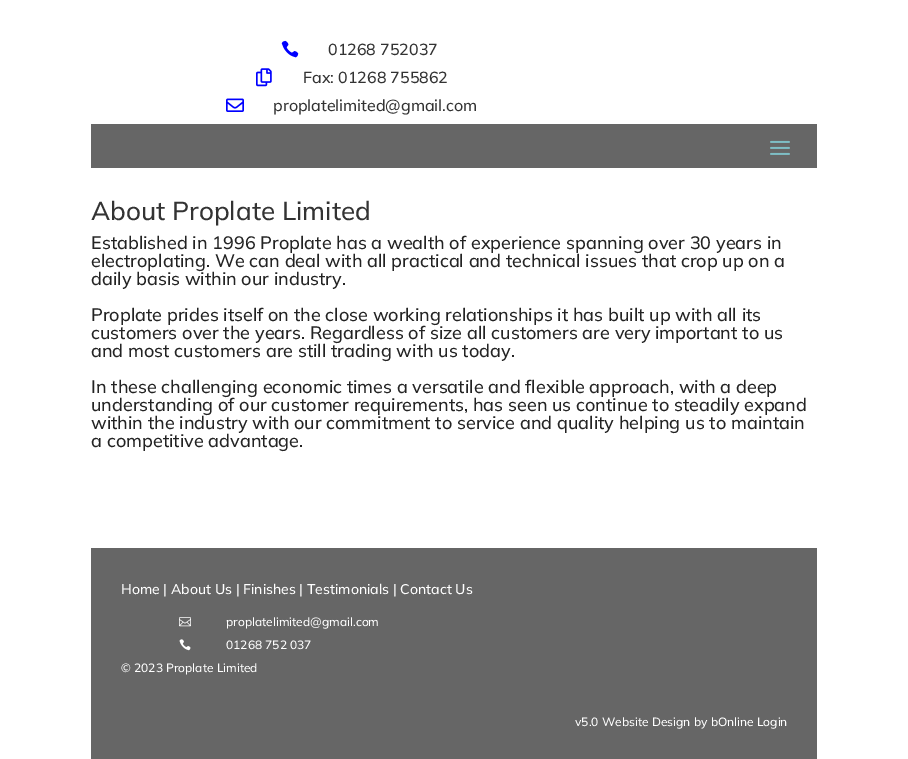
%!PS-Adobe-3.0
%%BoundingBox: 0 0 908 759
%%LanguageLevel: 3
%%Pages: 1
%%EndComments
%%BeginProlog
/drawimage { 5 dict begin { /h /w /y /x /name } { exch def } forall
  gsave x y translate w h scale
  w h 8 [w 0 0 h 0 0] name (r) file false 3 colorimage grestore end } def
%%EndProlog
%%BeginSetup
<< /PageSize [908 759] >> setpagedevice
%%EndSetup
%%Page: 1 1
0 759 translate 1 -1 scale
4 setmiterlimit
1 setgray
0 0 908 759 rectfill
(images/1.raw) 281 40 18 18 drawimage
(images/2.raw) 256 68 16 19 drawimage
(images/3.raw) 226 98 18 14 drawimage
0.4 setgray
91 124 726 44 rectfill
(images/4.raw) 770 140 20 15 drawimage
91 548 726 211 rectfill
(images/5.raw) 179 617 12 10 drawimage
(images/6.raw) 179 639 12 12 drawimage
/Mulish-Medium [16 0 0 -16 0 0] selectfont
0.2 setgray
328 55 moveto (01268 752037) show
303 83 moveto (Fax: 01268 755862) show
273 111 moveto (proplatelimited@gmail.com) show
/Mulish-Medium [26 0 0 -26 0 0] selectfont
91 220 moveto (About Proplate Limited) show
/Mulish-Medium [18 0 0 -18 0 0] selectfont
0.137 setgray
91 249 moveto (Established in 1996 Proplate has a wealth of experience spanning over 30 years in) show
91 267 moveto (electroplating. We can deal with all practical and technical issues that crop up on a) show
91 285 moveto (daily basis within our industry.) show
91 321 moveto (Proplate prides itself on the close working relationships it has built up with all its) show
91 339 moveto (customers over the years. Regardless of size all customers are very important to us) show
91 357 moveto (and most customers are still trading with us today.) show
91 393 moveto (In these challenging economic times a versatile and flexible approach, with a deep) show
91 411 moveto (understanding of our customer requirements, has seen us continue to steadily expand) show
91 429 moveto (within the industry with our commitment to service and quality helping us to maintain) show
91 447 moveto (a competitive advantage.) show
/Mulish-Medium [14 0 0 -14 0 0] selectfont
1 setgray
121 594 moveto (Home | About Us | Finishes | Testimonials | Contact Us) show
/Mulish-Medium [12 0 0 -12 0 0] selectfont
226 626 moveto (proplatelimited@gmail.com) show
226 649 moveto (01268 752 037) show
121 672 moveto (© 2023 Proplate Limited) show
575 726 moveto (v5.0 Website Design by bOnline Login) show
showpage
%%EOF
